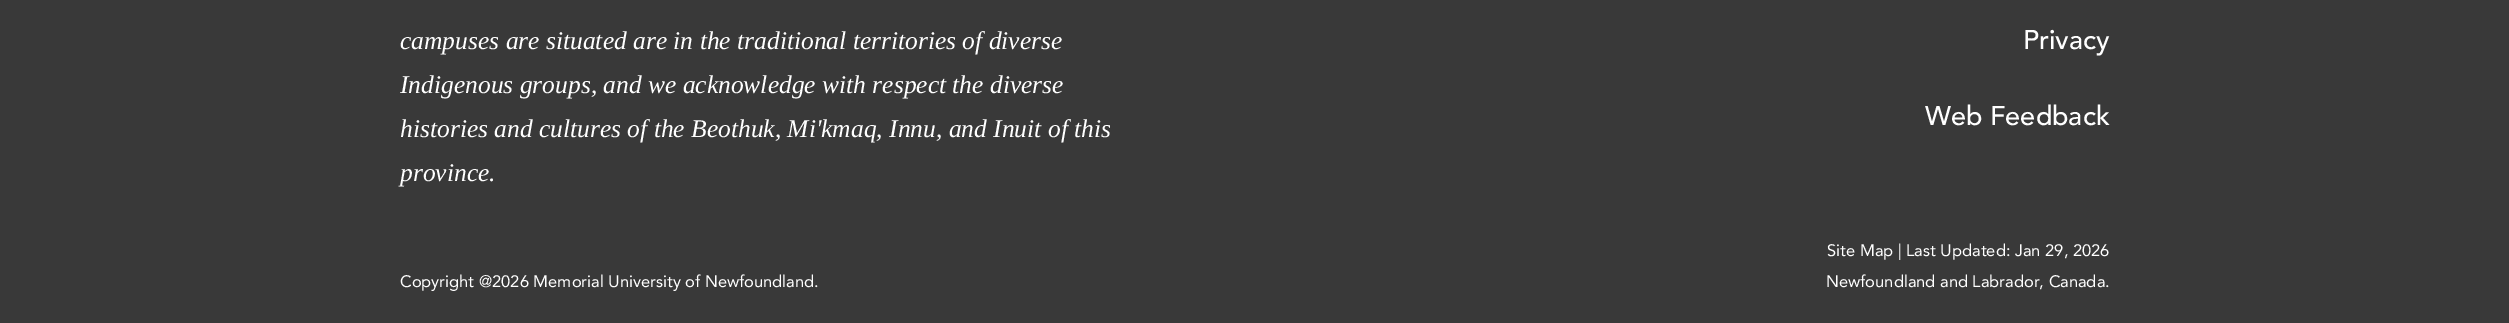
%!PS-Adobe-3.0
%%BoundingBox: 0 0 2509 323
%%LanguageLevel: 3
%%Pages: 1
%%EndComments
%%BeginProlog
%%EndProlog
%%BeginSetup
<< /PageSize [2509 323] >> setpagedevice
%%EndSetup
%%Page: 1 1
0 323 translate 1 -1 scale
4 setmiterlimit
0.224 setgray
0 0 2509 323 rectfill
/LiberationSerif-Italic [25.5 0 0 -25.5 0 0] selectfont
1 setgray
400 49 moveto (campuses are situated are in the traditional territories of diverse) show
400 93 moveto (Indigenous groups, and we acknowledge with respect the diverse) show
400 137 moveto (histories and cultures of the Beothuk, Mi'kmaq, Innu, and Inuit of this) show
400 181 moveto (province.) show
/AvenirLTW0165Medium-Medium [27 0 0 -27 0 0] selectfont
2023 49 moveto (Privacy) show
1925 125 moveto (Web Feedback) show
/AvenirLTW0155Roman-Regular [16.5 0 0 -16.5 0 0] selectfont
1827 256 moveto (Site Map | Last Updated: Jan 29, 2026) show
400 287 moveto (Copyright @2026 Memorial University of Newfoundland.) show
1826 287 moveto (Newfoundland and Labrador, Canada.) show
showpage
%%EOF
